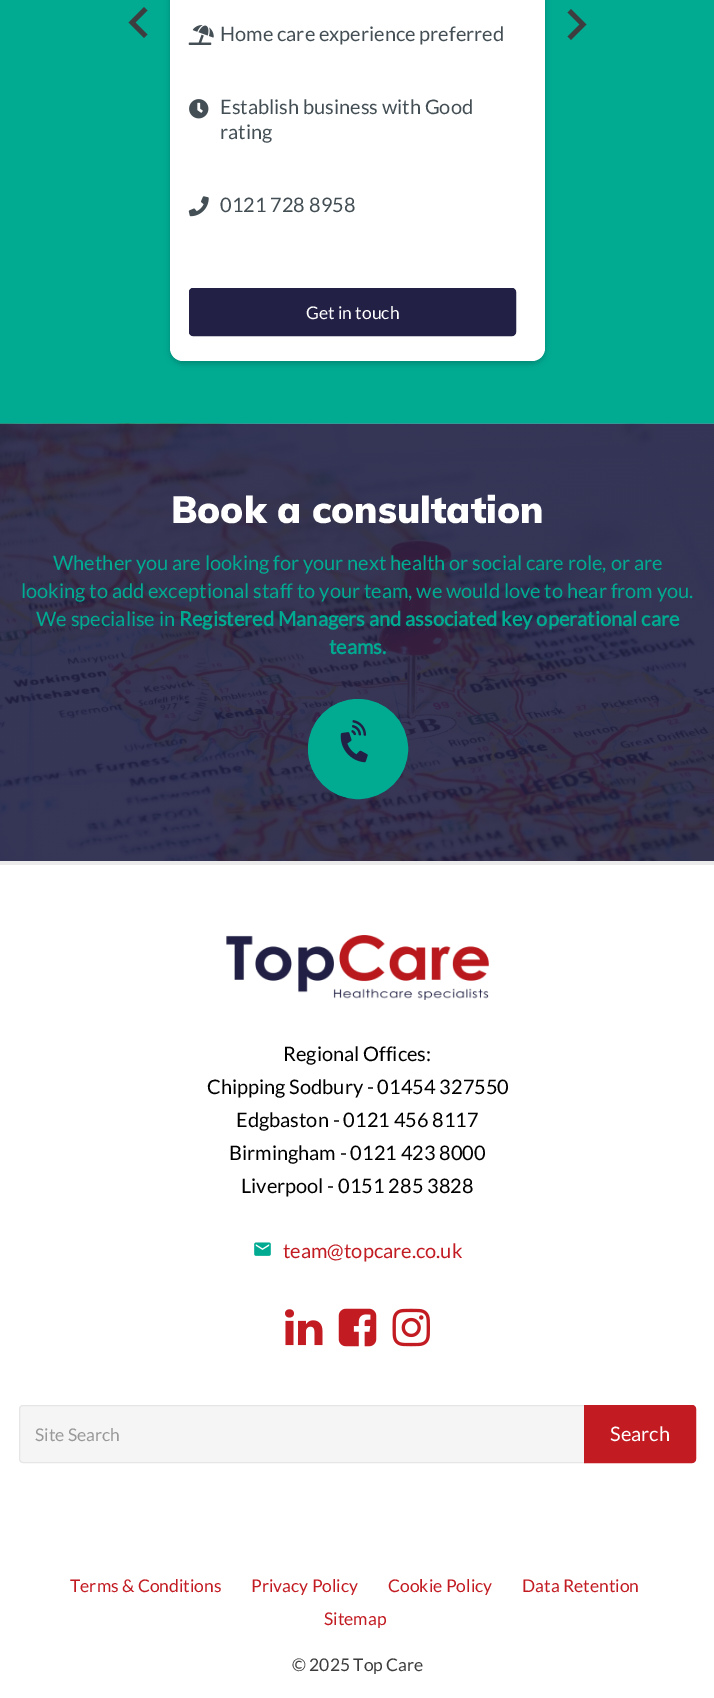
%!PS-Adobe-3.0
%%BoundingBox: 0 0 714 1698
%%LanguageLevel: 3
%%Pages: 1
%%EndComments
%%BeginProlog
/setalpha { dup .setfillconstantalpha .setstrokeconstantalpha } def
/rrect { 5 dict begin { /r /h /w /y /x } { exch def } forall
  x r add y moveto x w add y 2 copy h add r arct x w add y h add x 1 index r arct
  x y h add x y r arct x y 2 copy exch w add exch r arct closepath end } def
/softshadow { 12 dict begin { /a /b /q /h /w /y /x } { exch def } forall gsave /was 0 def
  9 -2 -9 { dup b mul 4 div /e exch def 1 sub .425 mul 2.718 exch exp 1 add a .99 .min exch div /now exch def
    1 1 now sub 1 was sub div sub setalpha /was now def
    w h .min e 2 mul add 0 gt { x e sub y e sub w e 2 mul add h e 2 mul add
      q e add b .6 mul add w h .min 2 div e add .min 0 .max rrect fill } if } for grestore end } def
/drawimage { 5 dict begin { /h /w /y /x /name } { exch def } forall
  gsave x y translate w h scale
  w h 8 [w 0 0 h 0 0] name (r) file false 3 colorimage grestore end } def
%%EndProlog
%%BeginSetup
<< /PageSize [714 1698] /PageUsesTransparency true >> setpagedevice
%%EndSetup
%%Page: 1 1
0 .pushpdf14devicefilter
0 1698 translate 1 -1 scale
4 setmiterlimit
1 setgray
0 0 714 1698 rectfill
0 0.671 0.573 setrgbcolor
0 0 714 424 rectfill
0.239 0.239 0.247 setrgbcolor
newpath 147.5 34.5 moveto 144 38 lineto 128.5 22.5 lineto 144 7 lineto 147.5 10.5 lineto 135.5 22.5 lineto closepath fill
newpath 567.5 36.5 moveto 579.5 24.5 lineto 567.5 12.5 lineto 571 9 lineto 586.5 24.5 lineto 571 40 lineto closepath fill
0 setgray
170 -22 375 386 13 3 0.2 softshadow
1 setgray
170 -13 375 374 13 rrect fill
(images/1.raw) 188 25 26 20 drawimage
(images/2.raw) 189 99 20 20 drawimage
(images/3.raw) 188 196 21 21 drawimage
0.133 0.125 0.267 setrgbcolor
189.5 288.5 326 47 3.5 rrect gsave fill grestore
stroke
(images/4.raw) 0 423 714 438 drawimage
0 0.671 0.573 setrgbcolor
newpath 358 749 49.5 0 360 arc closepath gsave fill grestore
stroke
(images/5.raw) 340 720 28 43 drawimage
0.922 setgray
0 861 714 4 rectfill
(images/6.raw) 226 935 263 65 drawimage
(images/7.raw) 254 1242 17 14 drawimage
(images/8.raw) 285 1309 38 37 drawimage
(images/9.raw) 338 1308 39 39 drawimage
(images/10.raw) 392 1308 38 39 drawimage
0.961 setgray
newpath 23 1405.5 moveto 584.5 1405.5 lineto 584.5 1462.5 lineto 23 1462.5 lineto 21 1462.5 19.5 1461 19.5 1459 curveto 19.5 1409 lineto 19.5 1407 21 1405.5 23 1405.5 curveto closepath gsave fill grestore
0.902 setgray
stroke
0.761 0.106 0.133 setrgbcolor
newpath 584.5 1405.5 moveto 692 1405.5 lineto 694 1405.5 695.5 1407 695.5 1409 curveto 695.5 1459 lineto 695.5 1461 694 1462.5 692 1462.5 curveto 584.5 1462.5 lineto closepath gsave fill grestore
stroke
/Lato-Regular [20 0 0 -20 0 0] selectfont
0.267 0.31 0.333 setrgbcolor
220 41 moveto (Home care experience preferred) show
220 114 moveto (Establish business with Good) show
220 139 moveto (rating) show
220 212 moveto (0121 728 8958) show
/Lato-Regular [17.5 0 0 -17.5 0 0] selectfont
1 setgray
306 319 moveto (Get in touch) show
/Muli-Black [37.5 0 0 -37.5 0 0] selectfont
171 523 moveto (Book a consultation) show
/Lato-Regular [20 0 0 -20 0 0] selectfont
0 0.671 0.573 setrgbcolor
53 570 moveto (Whether you are looking for your next health or social care role, or are) show
21 598 moveto (looking to add exceptional staff to your team, we would love to hear from you.) show
36 626 moveto (We specialise in) show
/Lato-Bold [20 0 0 -20 0 0] selectfont
179 626 moveto (Registered Managers and associated key operational care) show
329 654 moveto (teams.) show
/Lato-Regular [20 0 0 -20 0 0] selectfont
0 setgray
283 1061 moveto (Regional Offices:) show
207 1094 moveto (Chipping Sodbury - 01454 327550) show
236 1127 moveto (Edgbaston - 0121 456 8117) show
229 1160 moveto (Birmingham - 0121 423 8000) show
241 1193 moveto (Liverpool - 0151 285 3828) show
0.761 0.106 0.133 setrgbcolor
283 1258 moveto (team@topcare.co.uk) show
/Lato-Regular [17.5 0 0 -17.5 0 0] selectfont
0.6 setgray
35 1441 moveto (Site Search) show
/Lato-Regular [20 0 0 -20 0 0] selectfont
1 setgray
610 1441 moveto (Search) show
/Lato-Regular [17.5 0 0 -17.5 0 0] selectfont
0.761 0.106 0.133 setrgbcolor
70 1592 moveto (Terms & Conditions) show
251 1592 moveto (Privacy Policy) show
388 1592 moveto (Cookie Policy) show
522 1592 moveto (Data Retention) show
324 1625 moveto (Sitemap) show
0.239 0.239 0.247 setrgbcolor
292 1671 moveto (© 2025 Top Care) show
.poppdf14devicefilter showpage
%%EOF
